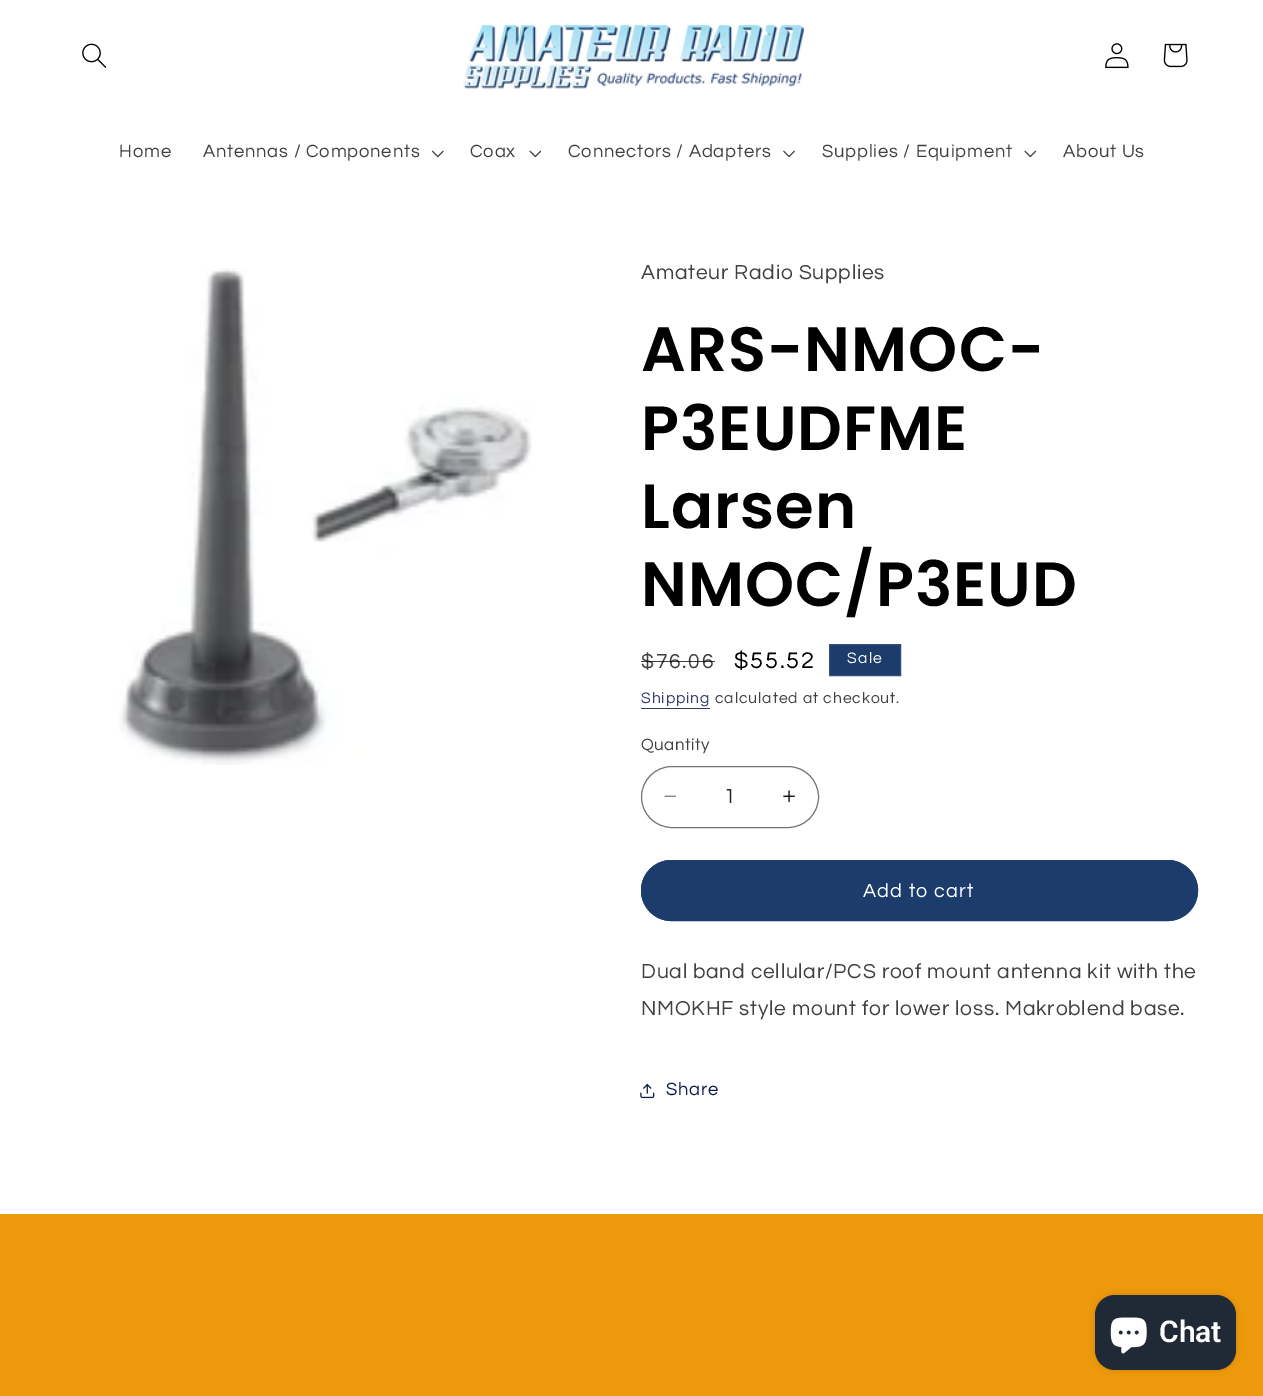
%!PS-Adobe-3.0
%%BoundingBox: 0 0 1263 1396
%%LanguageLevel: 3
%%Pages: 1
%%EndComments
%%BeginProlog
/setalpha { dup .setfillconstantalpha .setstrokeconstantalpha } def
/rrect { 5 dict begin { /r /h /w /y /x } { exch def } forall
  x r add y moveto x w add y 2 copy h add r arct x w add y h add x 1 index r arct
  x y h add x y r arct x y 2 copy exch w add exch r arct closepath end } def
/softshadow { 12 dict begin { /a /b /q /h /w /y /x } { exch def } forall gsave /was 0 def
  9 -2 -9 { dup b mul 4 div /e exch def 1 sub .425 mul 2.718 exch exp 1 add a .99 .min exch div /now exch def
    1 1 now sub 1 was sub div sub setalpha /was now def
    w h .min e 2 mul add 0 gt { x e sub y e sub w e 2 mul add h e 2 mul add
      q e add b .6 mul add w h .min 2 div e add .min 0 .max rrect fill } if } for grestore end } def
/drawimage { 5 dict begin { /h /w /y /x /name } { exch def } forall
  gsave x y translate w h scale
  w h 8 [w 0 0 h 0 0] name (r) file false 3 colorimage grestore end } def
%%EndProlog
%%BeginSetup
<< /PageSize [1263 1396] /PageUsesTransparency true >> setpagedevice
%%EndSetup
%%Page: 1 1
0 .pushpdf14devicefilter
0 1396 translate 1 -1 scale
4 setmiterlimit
1 setgray
0 0 1263 1396 rectfill
(images/1.raw) 82 43 25 25 drawimage
(images/2.raw) 462 24 343 65 drawimage
(images/3.raw) 1105 43 24 26 drawimage
(images/4.raw) 1163 43 25 25 drawimage
(images/5.raw) 432 150 12 8 drawimage
(images/6.raw) 529 150 12 8 drawimage
(images/7.raw) 783 150 12 8 drawimage
(images/8.raw) 1024 150 13 8 drawimage
(images/9.raw) 119 268 413 497 drawimage
0.11 0.235 0.424 setrgbcolor
newpath 829.5 644.5 moveto 900.5 644.5 lineto 900.5 675.5 lineto 829.5 675.5 lineto closepath gsave fill grestore
0.2 0.314 0.482 setrgbcolor
stroke
0.196 0.239 0.408 setrgbcolor
641 708 69 1 rectfill
(images/10.raw) 664 795 12 2 drawimage
(images/11.raw) 783 790 12 13 drawimage
0.451 setgray
641.5 766.5 177 61 30.5 rrect stroke
0.11 0.235 0.424 setrgbcolor
641 860 557 61 30.5 rrect fill
641.5 860.5 556 60 30 rrect stroke
(images/12.raw) 640 1084 15 15 drawimage
0.929 0.6 0.047 setrgbcolor
0 1214 1263 182 rectfill
0 setgray
1095 1295 141 75 20 3 0.15 softshadow
0.125 0.165 0.212 setrgbcolor
1095 1295 141 75 20 rrect fill
(images/13.raw) 1110 1317 37 37 drawimage
/Questrial-Regular [18.4 0 0 -18.4 0 0] selectfont
0.251 setgray
119 157 moveto 0.8 0 (Home) ashow
203 157 moveto 0.8 0 (Antennas / Components) ashow
470 157 moveto 0.8 0 (Coax) ashow
568 157 moveto 0.8 0 (Connectors / Adapters) ashow
822 157 moveto 0.8 0 (Supplies / Equipment) ashow
1063 157 moveto 0.8 0 (About Us) ashow
/Questrial-Regular [21 0 0 -21 0 0] selectfont
641 279 moveto 0.8 0 (Amateur Radio Supplies) ashow
/Poppins-SemiBold [62.5 0 0 -62.5 0 0] selectfont
0 setgray
641 371 moveto 1 0 (ARS-NMOC-) ashow
641 450 moveto 1 0 (P3EUDFME) ashow
641 528 moveto 1 0 (Larsen) ashow
641 606 moveto 1 0 (NMOC/P3EUD) ashow
/Questrial-Regular [21 0 0 -21 0 0] selectfont
0.251 setgray
641 668 moveto 1.75 0 ($76.06) ashow
0.75 setalpha
0 setgray
641 661 74 1 rectfill
/Questrial-Regular [23.5 0 0 -23.5 0 0] selectfont
1 setalpha
734 668 moveto 1.75 0 ($55.52) ashow
/Questrial-Regular [15.75 0 0 -15.75 0 0] selectfont
1 setgray
847 663 moveto 1.25 0 (Sale) ashow
0.196 0.239 0.408 setrgbcolor
641 703 moveto 0.9 0 (Shipping) ashow
0.251 setgray
715 703 moveto 0.9 0 (calculated at checkout.) ashow
/Questrial-Regular [17 0 0 -17 0 0] selectfont
641 750 moveto 0.5 0 (Quantity) ashow
/Questrial-Regular [21 0 0 -21 0 0] selectfont
0.149 setgray
724 803 moveto (1) show
/Questrial-Regular [19.75 0 0 -19.75 0 0] selectfont
1 setgray
863 897 moveto 1.25 0 (Add to cart) ashow
/Questrial-Regular [21 0 0 -21 0 0] selectfont
0.251 setgray
641 978 moveto 0.8 0 (Dual band cellular/PCS roof mount antenna kit with the) ashow
641 1015 moveto 0.8 0 (NMOKHF style mount for lower loss. Makroblend base.) ashow
/Questrial-Regular [18.4 0 0 -18.4 0 0] selectfont
0.055 0.106 0.302 setrgbcolor
666 1095 moveto 0.8 0 (Share) ashow
/Roboto-SemiBold [30 0 0 -30 0 0] selectfont
1 setgray
1159 1342 moveto (Chat) show
.poppdf14devicefilter showpage
%%EOF
